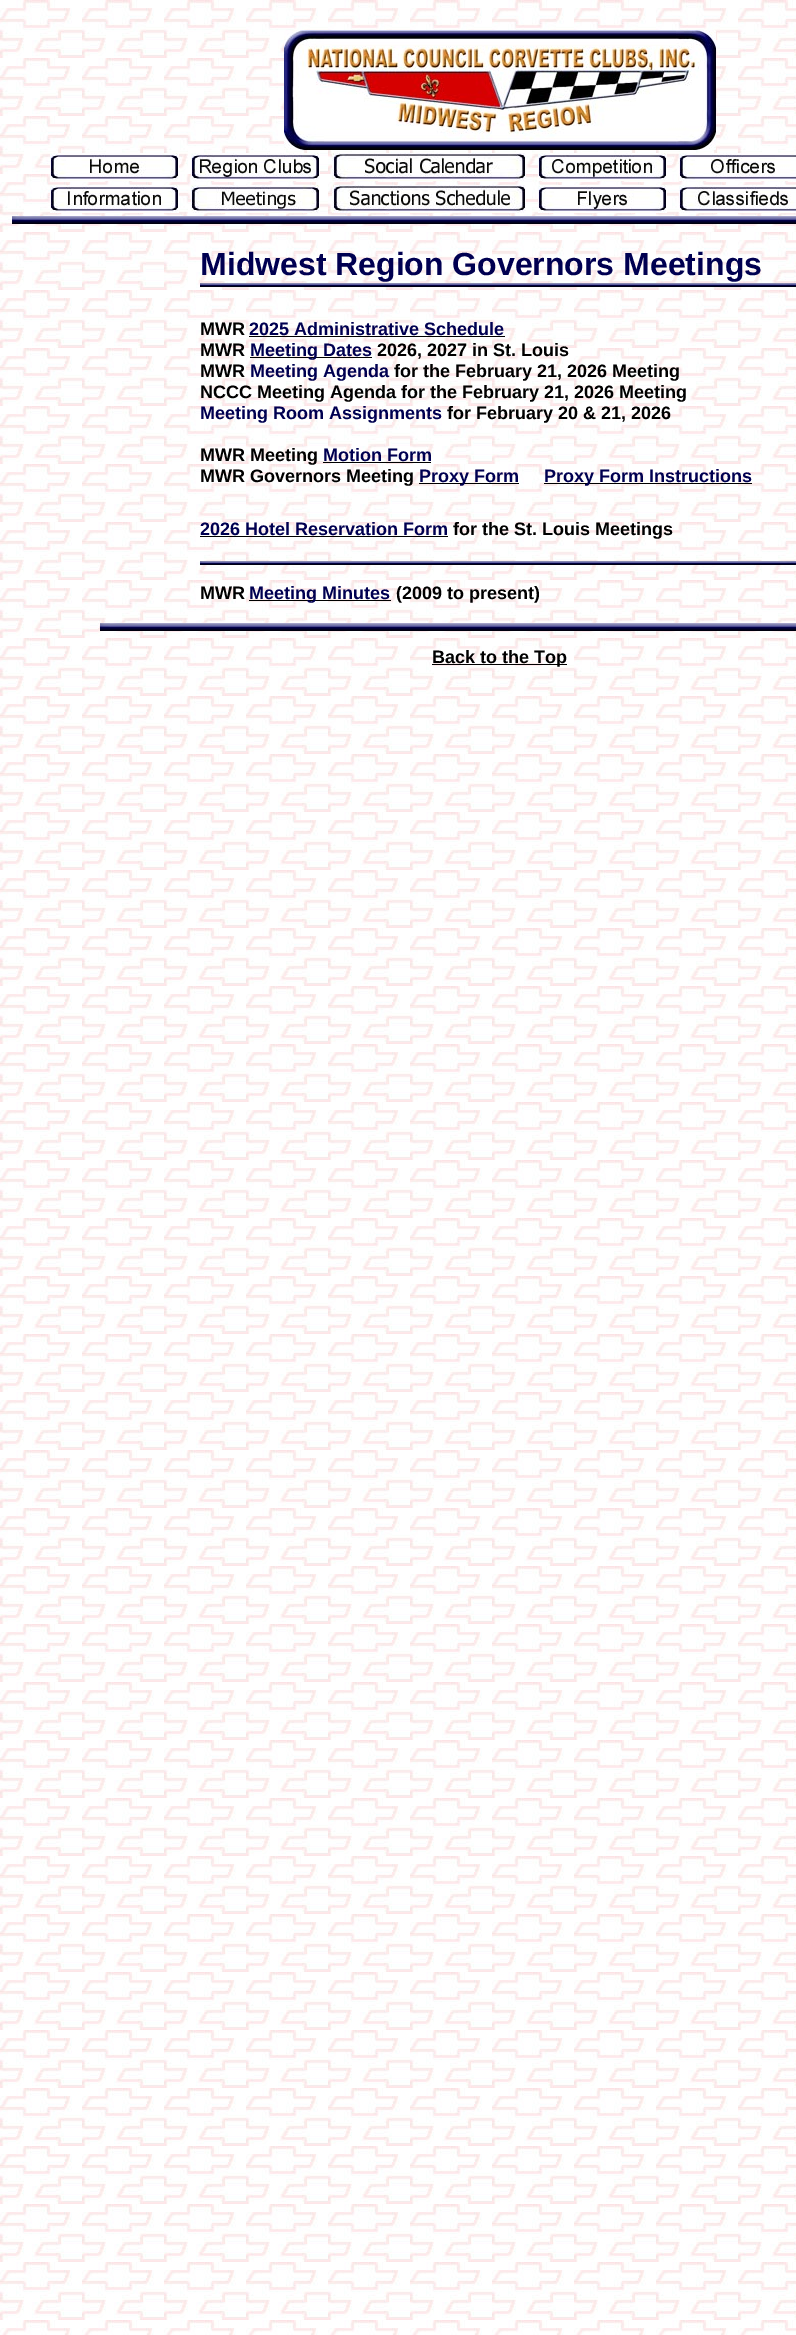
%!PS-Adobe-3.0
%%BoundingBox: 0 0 796 2335
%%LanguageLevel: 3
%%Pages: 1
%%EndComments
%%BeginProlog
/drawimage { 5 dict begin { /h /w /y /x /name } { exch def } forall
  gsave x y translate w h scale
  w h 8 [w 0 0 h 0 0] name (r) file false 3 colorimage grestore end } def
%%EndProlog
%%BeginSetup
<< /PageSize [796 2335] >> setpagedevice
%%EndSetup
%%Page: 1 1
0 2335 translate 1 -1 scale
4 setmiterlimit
1 setgray
0 0 796 2335 rectfill
(images/1.raw) 0 0 796 2335 drawimage
(images/2.raw) 284 30 432 120 drawimage
(images/3.raw) 50 153 129 28 drawimage
(images/4.raw) 191 153 129 28 drawimage
(images/5.raw) 332 153 194 28 drawimage
(images/6.raw) 538 153 129 28 drawimage
(images/7.raw) 679 153 117 28 drawimage
(images/8.raw) 50 185 129 28 drawimage
(images/9.raw) 191 185 129 28 drawimage
(images/10.raw) 332 185 194 28 drawimage
(images/11.raw) 538 185 129 28 drawimage
(images/12.raw) 679 185 117 28 drawimage
(images/13.raw) 12 216 784 8 drawimage
(images/14.raw) 200 283 596 4 drawimage
0 setgray
249 336 256 1 rectfill
250 357 122 1 rectfill
323 462 108 1 rectfill
419 483 100 1 rectfill
544 483 208 1 rectfill
200 536 248 1 rectfill
(images/14.raw) 200 561 596 4 drawimage
249 600 142 1 rectfill
(images/15.raw) 100 623 696 8 drawimage
432 664 135 1 rectfill
/LiberationSans-Bold [32 0 0 -32 0 0] selectfont
0 0 0.318 setrgbcolor
200 275 moveto (Midwest Region Governors Meetings) show
/LiberationSans-Bold [18 0 0 -18 0 0] selectfont
0 setgray
200 335 moveto (MWR) show
0 0 0.318 setrgbcolor
249 335 moveto (2025 Administrative Schedule) show
0 setgray
200 356 moveto (MWR) show
0 0 0.318 setrgbcolor
250 356 moveto (Meeting Dates) show
0 setgray
377 356 moveto (2026, 2027 in St. Louis) show
200 377 moveto (MWR) show
0 0 0.318 setrgbcolor
250 377 moveto (Meeting Agenda) show
0 setgray
394 377 moveto (for the February 21, 2026 Meeting) show
200 398 moveto (NCCC Meeting Agenda for the February 21, 2026 Meeting) show
0 0 0.318 setrgbcolor
200 419 moveto (Meeting Room Assignments) show
0 setgray
447 419 moveto (for February 20 & 21, 2026) show
200 461 moveto (MWR Meeting) show
0 0 0.318 setrgbcolor
323 461 moveto (Motion Form) show
0 setgray
200 482 moveto (MWR Governors Meeting) show
0 0 0.318 setrgbcolor
419 482 moveto (Proxy Form) show
544 482 moveto (Proxy Form Instructions) show
200 535 moveto (2026 Hotel Reservation Form) show
0 setgray
453 535 moveto (for the St. Louis Meetings) show
200 599 moveto (MWR) show
0 0 0.318 setrgbcolor
249 599 moveto (Meeting Minutes) show
0 setgray
396 599 moveto (\(2009 to present\)) show
432 663 moveto (Back to the Top) show
showpage
%%EOF
